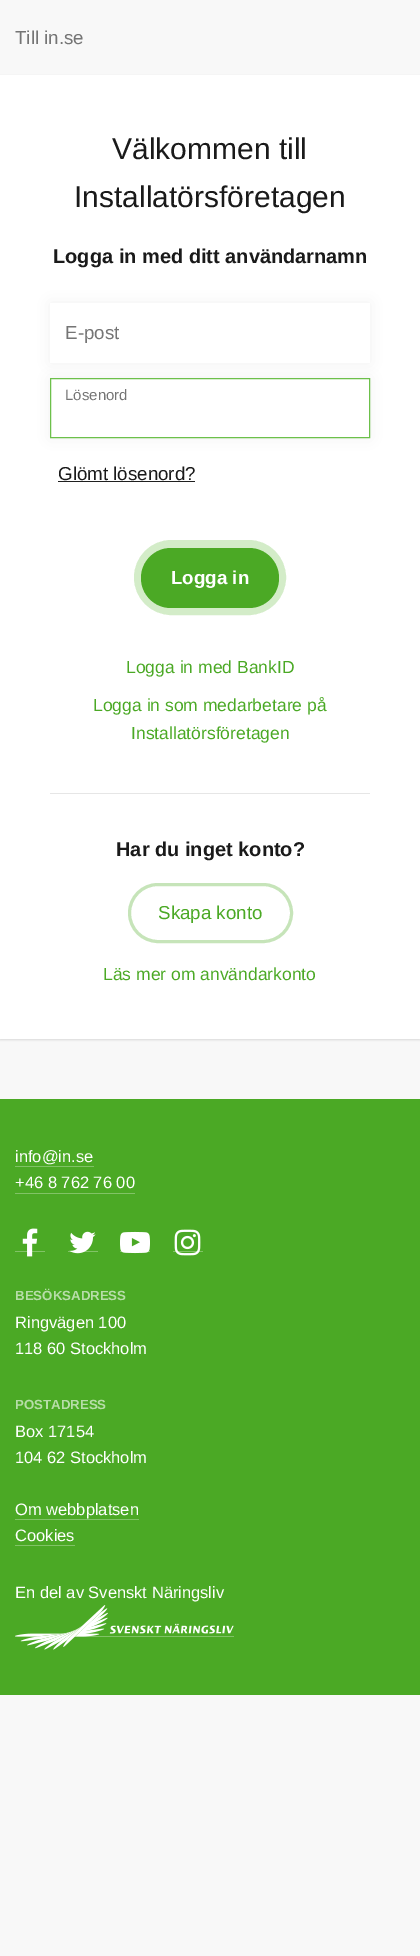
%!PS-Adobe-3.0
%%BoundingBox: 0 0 420 1956
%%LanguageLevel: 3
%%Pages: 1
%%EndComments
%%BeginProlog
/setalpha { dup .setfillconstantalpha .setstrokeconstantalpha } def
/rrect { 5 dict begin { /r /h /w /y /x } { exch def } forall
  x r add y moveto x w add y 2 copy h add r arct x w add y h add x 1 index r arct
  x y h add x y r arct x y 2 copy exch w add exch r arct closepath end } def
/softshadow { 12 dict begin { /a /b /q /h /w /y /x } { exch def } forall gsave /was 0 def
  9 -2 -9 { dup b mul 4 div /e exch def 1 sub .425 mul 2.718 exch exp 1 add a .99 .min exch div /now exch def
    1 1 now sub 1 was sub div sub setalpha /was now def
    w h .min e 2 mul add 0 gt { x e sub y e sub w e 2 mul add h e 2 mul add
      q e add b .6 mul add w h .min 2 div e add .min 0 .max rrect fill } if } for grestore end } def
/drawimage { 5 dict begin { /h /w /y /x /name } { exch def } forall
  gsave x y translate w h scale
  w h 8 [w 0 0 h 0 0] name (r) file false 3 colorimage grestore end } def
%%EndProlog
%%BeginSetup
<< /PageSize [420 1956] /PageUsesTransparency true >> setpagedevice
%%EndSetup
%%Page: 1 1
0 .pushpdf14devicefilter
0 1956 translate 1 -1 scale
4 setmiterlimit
0.973 setgray
0 0 420 1956 rectfill
0 setgray
0 76 420 964 0 1 0.12 softshadow
1 setgray
0 75 420 964 rectfill
0 setgray
50 303 320 60 0 7.5 0.05 softshadow
1 setgray
50 303 320 60 rectfill
0 setgray
50 378 320 60 0 7.5 0.05 softshadow
1 setgray
newpath 50.5 378.5 moveto 369.5 378.5 lineto 369.5 437.5 lineto 50.5 437.5 lineto closepath gsave fill grestore
0.424 0.753 0.29 setrgbcolor
stroke
0.122 setgray
58 481 137 1 rectfill
0.827 0.925 0.784 setrgbcolor
8 setlinewidth
138 544 144 67 33.5 rrect stroke
0.294 0.663 0.145 setrgbcolor
141 548 138 60 30 rrect fill
0.902 setgray
50 793 320 1 rectfill
0.776 0.894 0.725 setrgbcolor
3 setlinewidth
129.5 884.5 162 57 28.5 rrect stroke
0.294 0.663 0.145 setrgbcolor
0 1099 420 596 rectfill
0.506 0.765 0.4 setrgbcolor
15 1166 79 1 rectfill
15 1193 120 1 rectfill
15 1251 30 1 rectfill
(images/1.raw) 22 1228 16 29 drawimage
68 1251 30 1 rectfill
(images/2.raw) 69 1231 27 23 drawimage
120 1251 30 1 rectfill
(images/3.raw) 120 1231 30 23 drawimage
173 1251 30 1 rectfill
(images/4.raw) 174 1229 27 27 drawimage
15 1519 124 1 rectfill
15 1545 60 1 rectfill
15 1636 219 1 rectfill
(images/5.raw) 15 1605 219 45 drawimage
/LiberationSans-Regular [18.75 0 0 -18.75 0 0] selectfont
0.459 setgray
15 44 moveto (Till in.se) show
/LiberationSans-Regular [30 0 0 -30 0 0] selectfont
0.102 setgray
112 159 moveto (Välkommen till) show
74 207 moveto (Installatörsföretagen) show
/LiberationSans-Bold [20 0 0 -20 0 0] selectfont
53 263 moveto (Logga in med ditt användarnamn) show
/LiberationSans-Regular [18.75 0 0 -18.75 0 0] selectfont
0.459 setgray
65 339 moveto (E-post) show
/LiberationSans-Regular [15 0 0 -15 0 0] selectfont
65 400 moveto (Lösenord) show
/LiberationSans-Regular [18.75 0 0 -18.75 0 0] selectfont
0.102 setgray
58 480 moveto (Glömt lösenord?) show
/LiberationSans-Bold [18.75 0 0 -18.75 0 0] selectfont
1 setgray
171 584 moveto (Logga in) show
/LiberationSans-Regular [17.5 0 0 -17.5 0 0] selectfont
0.294 0.663 0.145 setrgbcolor
126 673 moveto (Logga in med BankID) show
93 711 moveto (Logga in som medarbetare på) show
131 739 moveto (Installatörsföretagen) show
/LiberationSans-Bold [20 0 0 -20 0 0] selectfont
0.102 setgray
116 856 moveto (Har du inget konto?) show
/LiberationSans-Regular [18.75 0 0 -18.75 0 0] selectfont
0.294 0.663 0.145 setrgbcolor
158 919 moveto (Skapa konto) show
/LiberationSans-Regular [17.5 0 0 -17.5 0 0] selectfont
103 980 moveto (Läs mer om användarkonto) show
/LiberationSans-Regular [16.5 0 0 -16.5 0 0] selectfont
1 setgray
15 1162 moveto (info@in.se) show
15 1188 moveto (+46 8 762 76 00) show
/LiberationSans-Bold [13.25 0 0 -13.25 0 0] selectfont
0.718 0.867 0.659 setrgbcolor
15 1300 moveto (BESÖKSADRESS) show
/LiberationSans-Regular [16.5 0 0 -16.5 0 0] selectfont
1 setgray
15 1328 moveto (Ringvägen 100) show
15 1354 moveto (118 60 Stockholm) show
/LiberationSans-Bold [13.25 0 0 -13.25 0 0] selectfont
0.718 0.867 0.659 setrgbcolor
15 1409 moveto (POSTADRESS) show
/LiberationSans-Regular [16.5 0 0 -16.5 0 0] selectfont
1 setgray
15 1437 moveto (Box 17154) show
15 1463 moveto (104 62 Stockholm) show
15 1515 moveto (Om webbplatsen) show
15 1541 moveto (Cookies) show
15 1598 moveto (En del av Svenskt Näringsliv) show
.poppdf14devicefilter showpage
%%EOF
